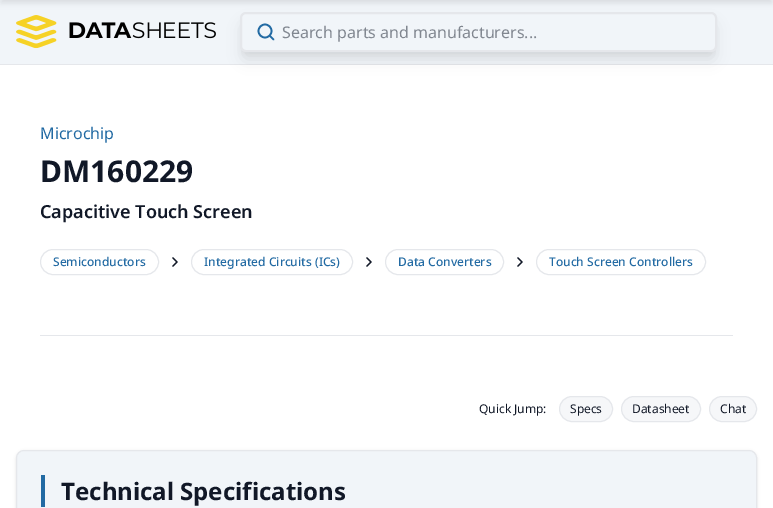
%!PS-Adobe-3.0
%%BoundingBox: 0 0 773 508
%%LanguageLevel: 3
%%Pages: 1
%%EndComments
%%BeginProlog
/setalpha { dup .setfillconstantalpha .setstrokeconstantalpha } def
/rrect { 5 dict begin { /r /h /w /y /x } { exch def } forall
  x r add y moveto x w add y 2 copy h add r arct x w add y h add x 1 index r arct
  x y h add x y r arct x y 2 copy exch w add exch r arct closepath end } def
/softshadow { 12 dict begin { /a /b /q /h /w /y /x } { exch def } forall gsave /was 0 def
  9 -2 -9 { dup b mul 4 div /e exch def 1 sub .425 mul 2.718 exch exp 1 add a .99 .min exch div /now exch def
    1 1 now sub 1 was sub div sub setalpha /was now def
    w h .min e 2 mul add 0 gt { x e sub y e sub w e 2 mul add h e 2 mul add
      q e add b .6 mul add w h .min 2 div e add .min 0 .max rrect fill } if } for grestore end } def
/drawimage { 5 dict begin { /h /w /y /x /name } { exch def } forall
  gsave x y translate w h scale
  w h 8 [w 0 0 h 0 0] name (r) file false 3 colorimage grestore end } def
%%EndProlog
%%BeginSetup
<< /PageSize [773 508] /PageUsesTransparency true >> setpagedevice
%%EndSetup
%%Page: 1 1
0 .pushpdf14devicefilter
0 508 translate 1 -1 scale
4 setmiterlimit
1 setgray
0 0 773 508 rectfill
0.945 0.961 0.976 setrgbcolor
0 0 773 64 rectfill
0.898 0.906 0.922 setrgbcolor
0 64 773 1 rectfill
(images/1.raw) 16 15 200 34 drawimage
0 setgray
244 20 469 32 2 3 0.1 softshadow
243 25 471 34 3 7.5 0.1 softshadow
0.945 0.961 0.976 setrgbcolor
241 13 475 38 5 rrect gsave fill grestore
0.898 0.906 0.922 setrgbcolor
2 setlinewidth
stroke
0.133 0.416 0.639 setrgbcolor
1.7 setlinewidth
newpath 265 31 6.5 0 360 arc closepath stroke
1 setlinecap
1 setlinejoin
newpath 273.5 39.5 moveto 270 36 lineto stroke
0 setgray
1 -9 771 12 0 3 0.1 softshadow
0.898 0.906 0.922 setrgbcolor
1 setlinewidth
0 setlinecap
0 setlinejoin
40.5 249.5 118 25 12.5 rrect stroke
0.067 0.094 0.153 setrgbcolor
1.3 setlinewidth
1 setlinecap
1 setlinejoin
newpath 173 266 moveto 177 262 lineto 173 258 lineto stroke
0.898 0.906 0.922 setrgbcolor
1 setlinewidth
0 setlinecap
0 setlinejoin
191.5 249.5 161 25 12.5 rrect stroke
0.067 0.094 0.153 setrgbcolor
1.3 setlinewidth
1 setlinecap
1 setlinejoin
newpath 367 266 moveto 371 262 lineto 367 258 lineto stroke
0.898 0.906 0.922 setrgbcolor
1 setlinewidth
0 setlinecap
0 setlinejoin
385.5 249.5 118 25 12.5 rrect stroke
0.067 0.094 0.153 setrgbcolor
1.3 setlinewidth
1 setlinecap
1 setlinejoin
newpath 518 266 moveto 522 262 lineto 518 258 lineto stroke
0.898 0.906 0.922 setrgbcolor
1 setlinewidth
0 setlinecap
0 setlinejoin
536.5 249.5 169 25 12.5 rrect stroke
40 335 693 1 rectfill
0.965 0.969 0.976 setrgbcolor
559.5 396.5 53 25 12.5 rrect gsave fill grestore
0.898 0.906 0.922 setrgbcolor
stroke
0.965 0.969 0.976 setrgbcolor
621.5 396.5 79 25 12.5 rrect gsave fill grestore
0.898 0.906 0.922 setrgbcolor
stroke
0.965 0.969 0.976 setrgbcolor
709.5 396.5 47 25 12.5 rrect gsave fill grestore
0.898 0.906 0.922 setrgbcolor
stroke
0 setgray
16 451 741 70 8 1.5 0.1 softshadow
0.945 0.961 0.976 setrgbcolor
16.5 450.5 740 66 7.5 rrect gsave fill grestore
0.898 0.906 0.922 setrgbcolor
stroke
0.133 0.416 0.639 setrgbcolor
41 475 4 32 rectfill
/NotoSans-Regular [16 0 0 -16 0 0] selectfont
0.506 0.529 0.565 setrgbcolor
282 38 moveto (Search parts and manufacturers...) show
0.133 0.416 0.639 setrgbcolor
40 139 moveto (Microchip) show
/NotoSans-Bold [30 0 0 -30 0 0] selectfont
0.067 0.094 0.153 setrgbcolor
40 182 moveto (DM160229) show
/NotoSans-SemiBold [18 0 0 -18 0 0] selectfont
40 218 moveto (Capacitive Touch Screen) show
/NotoSans-Medium [12 0 0 -12 0 0] selectfont
0.133 0.416 0.639 setrgbcolor
53 266 moveto (Semiconductors) show
204 266 moveto (Integrated Circuits \(ICs\)) show
398 266 moveto (Data Converters) show
549 266 moveto (Touch Screen Controllers) show
/NotoSans-Regular [12 0 0 -12 0 0] selectfont
0.067 0.094 0.153 setrgbcolor
479 413 moveto (Quick Jump:) show
570 413 moveto (Specs) show
632 413 moveto (Datasheet) show
720 413 moveto (Chat) show
/NotoSans-Bold [24 0 0 -24 0 0] selectfont
61 500 moveto (Technical Specifications) show
.poppdf14devicefilter showpage
%%EOF
